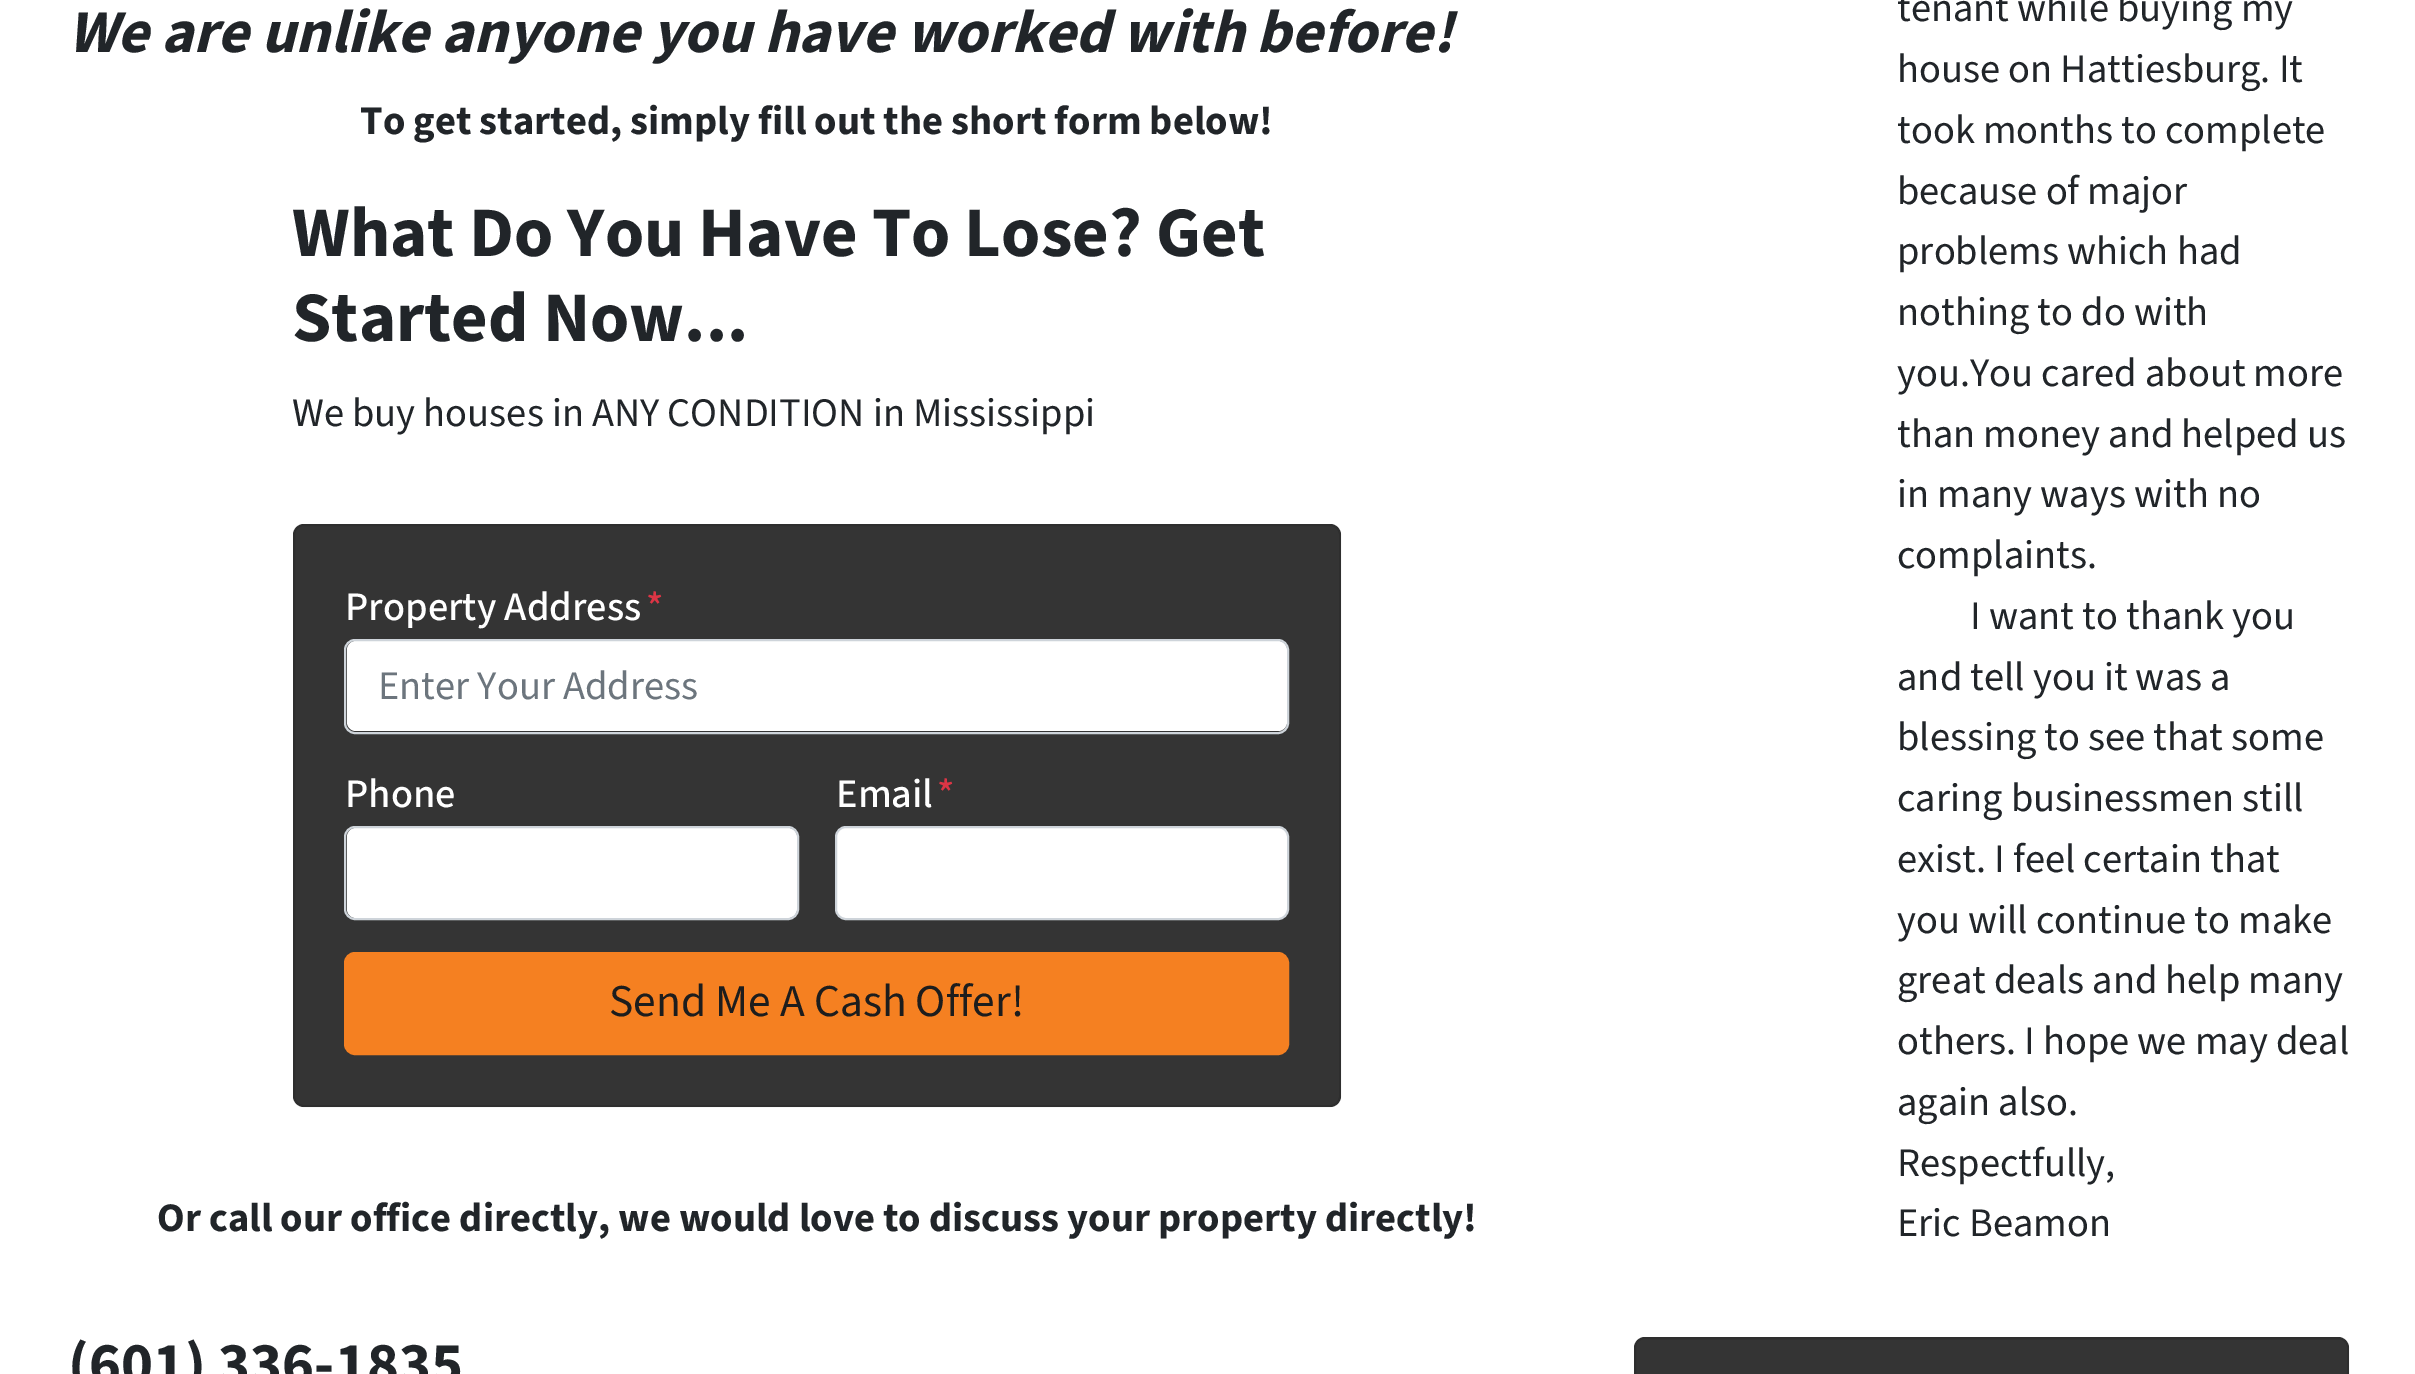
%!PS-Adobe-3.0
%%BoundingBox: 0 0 2415 1374
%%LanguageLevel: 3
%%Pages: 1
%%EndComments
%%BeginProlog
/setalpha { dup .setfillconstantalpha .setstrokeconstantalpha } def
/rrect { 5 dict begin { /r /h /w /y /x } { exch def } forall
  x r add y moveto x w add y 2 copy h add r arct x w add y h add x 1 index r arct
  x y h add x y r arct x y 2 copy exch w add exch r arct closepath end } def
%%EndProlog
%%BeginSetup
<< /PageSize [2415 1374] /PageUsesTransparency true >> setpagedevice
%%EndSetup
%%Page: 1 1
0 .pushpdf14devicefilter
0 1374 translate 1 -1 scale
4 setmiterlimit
1 setgray
0 0 2415 1374 rectfill
0.204 setgray
293 524 1048 583 11 rrect fill
0.12 setalpha
0 setgray
2 setlinewidth
294 525 1046 581 10 rrect stroke
1 setalpha
1 setgray
347 641 940 90 9 rrect fill
0.808 0.831 0.855 setrgbcolor
345 640 943 93 10 rrect stroke
1 setgray
347 828 450 90 9 rrect fill
0.808 0.831 0.855 setrgbcolor
345 827 453 92 10 rrect stroke
1 setgray
836 827 452 92 10 rrect gsave fill grestore
0.808 0.831 0.855 setrgbcolor
stroke
0.961 0.502 0.129 setrgbcolor
345 953 943 101 10 rrect gsave fill grestore
stroke
0.204 setgray
1634 1337 715 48 11 rrect fill
0.12 setalpha
0 setgray
1635 1338 713 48 10 rrect stroke
/SourceSans3-BoldItalic [60.75 0 0 -60.75 0 0] selectfont
1 setalpha
0.129 0.145 0.161 setrgbcolor
68 52 moveto (We are unlike anyone you have worked with before!) show
/SourceSans3-Bold [40.5 0 0 -40.5 0 0] selectfont
360 134 moveto (To get started, simply fill out the short form below!) show
/SourceSans3-Bold [70.9 0 0 -70.9 0 0] selectfont
292 256 moveto (What Do You Have To Lose? Get) show
292 341 moveto (Started Now...) show
/SourceSans3-Regular [40.5 0 0 -40.5 0 0] selectfont
292 426 moveto (We buy houses in ANY CONDITION in Mississippi) show
/SourceSans3-Medium [40.5 0 0 -40.5 0 0] selectfont
1 setgray
345 620 moveto (Property Address) show
0.863 0.208 0.271 setrgbcolor
646 620 moveto (*) show
/SourceSans3-Regular [40.5 0 0 -40.5 0 0] selectfont
0.424 0.459 0.49 setrgbcolor
378 699 moveto (Enter Your Address) show
/SourceSans3-Medium [40.5 0 0 -40.5 0 0] selectfont
1 setgray
345 807 moveto (Phone) show
836 807 moveto (Email) show
0.863 0.208 0.271 setrgbcolor
937 807 moveto (*) show
/SourceSans3-Regular [45.5 0 0 -45.5 0 0] selectfont
0.114 setgray
609 1016 moveto (Send Me A Cash Offer!) show
/SourceSans3-Bold [40.5 0 0 -40.5 0 0] selectfont
0.129 0.145 0.161 setrgbcolor
157 1231 moveto (Or call our office directly, we would love to discuss your property directly!) show
/SourceSans3-Bold [60.75 0 0 -60.75 0 0] selectfont
68 1384 moveto (\(601\) 336-1835) show
/SourceSans3-Regular [40.5 0 0 -40.5 0 0] selectfont
1897 21 moveto (tenant while buying my) show
1897 82 moveto (house on Hattiesburg. It) show
1897 143 moveto (took months to complete) show
1897 204 moveto (because of major) show
1897 264 moveto (problems which had) show
1897 325 moveto (nothing to do with) show
1897 386 moveto (you.You cared about more) show
1897 447 moveto (than money and helped us) show
1897 507 moveto (in many ways with no) show
1897 568 moveto (complaints.) show
1970 629 moveto (I want to thank you) show
1897 690 moveto (and tell you it was a) show
1897 750 moveto (blessing to see that some) show
1897 811 moveto (caring businessmen still) show
1897 872 moveto (exist. I feel certain that) show
1897 933 moveto (you will continue to make) show
1897 993 moveto (great deals and help many) show
1897 1054 moveto (others. I hope we may deal) show
1897 1115 moveto (again also.) show
1897 1176 moveto (Respectfully,) show
1897 1236 moveto (Eric Beamon) show
.poppdf14devicefilter showpage
%%EOF
